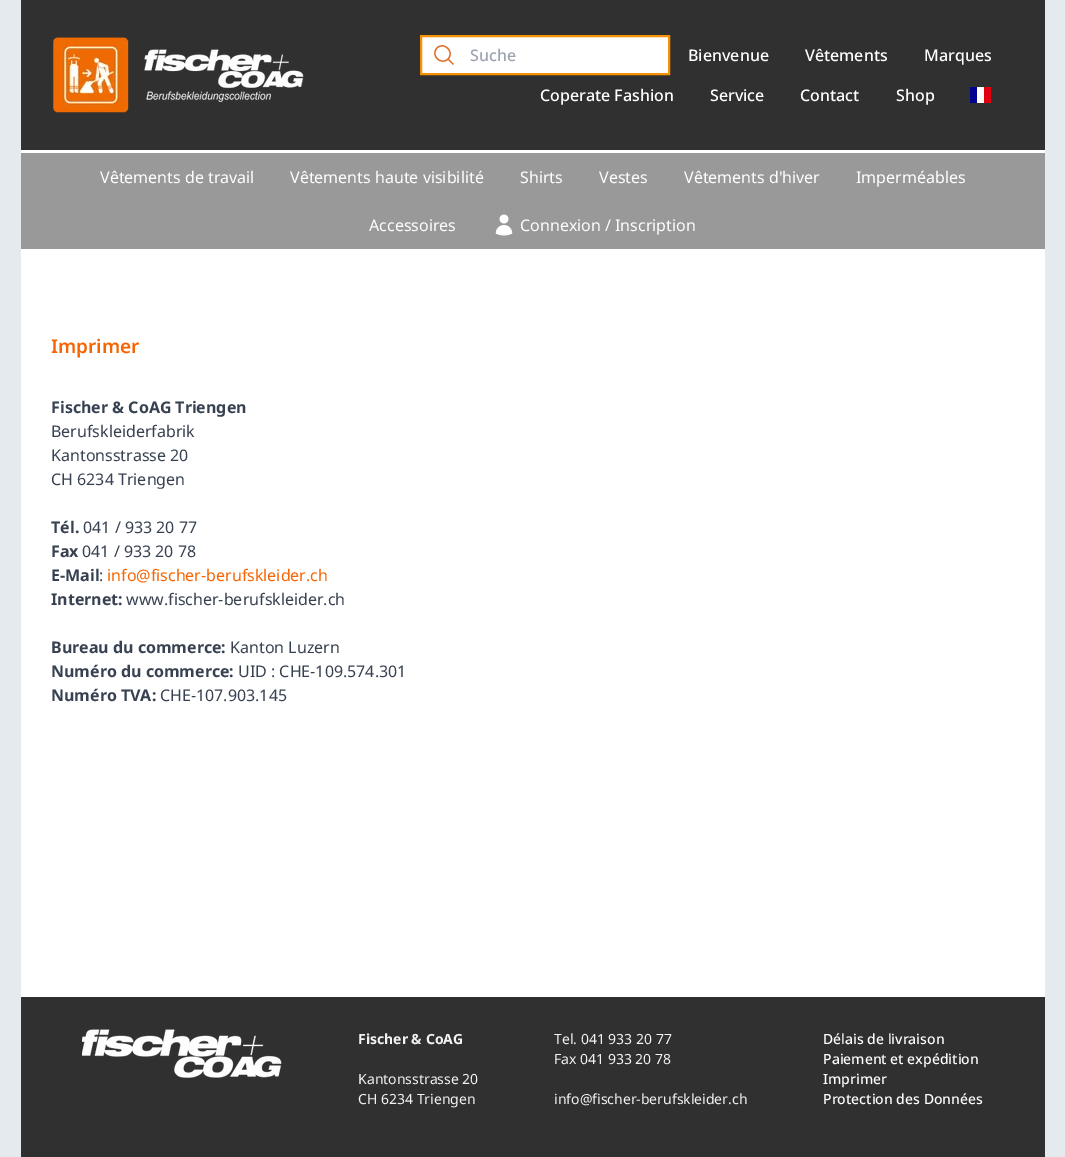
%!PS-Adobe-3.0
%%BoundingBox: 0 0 1065 1157
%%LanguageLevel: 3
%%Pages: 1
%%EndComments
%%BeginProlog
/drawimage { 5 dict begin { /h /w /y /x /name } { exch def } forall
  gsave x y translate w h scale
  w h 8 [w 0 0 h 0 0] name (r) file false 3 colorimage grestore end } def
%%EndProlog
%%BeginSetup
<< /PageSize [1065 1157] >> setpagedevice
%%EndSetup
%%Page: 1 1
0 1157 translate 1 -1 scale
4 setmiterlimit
0.898 0.918 0.933 setrgbcolor
0 0 1065 1157 rectfill
0.188 setgray
21 0 1024 150 rectfill
(images/1.raw) 53 37 251 76 drawimage
1 setgray
newpath 421 36 moveto 669 36 lineto 669 74 lineto 421 74 lineto closepath gsave fill grestore
0.961 0.569 0.02 setrgbcolor
2 setlinewidth
stroke
0.878 0.447 0.173 setrgbcolor
1.3 setlinewidth
1 setlinecap
1 setlinejoin
newpath 453 64 moveto 448 59 lineto 448 59 moveto 455 52 444 41 437 48 curveto 430 55 441 66 448 59 curveto closepath stroke
1 setgray
977 87 7 16 rectfill
0 0 0.569 setrgbcolor
970 87 7 16 rectfill
0.882 0 0.059 setrgbcolor
984 87 7 16 rectfill
0.6 setgray
21 153 1024 96 rectfill
1 setgray
21 150 1024 3 rectfill
(images/2.raw) 495 214 18 22 drawimage
21 249 1024 748 rectfill
0.188 setgray
21 997 1024 160 rectfill
(images/3.raw) 82 1029 200 49 drawimage
/NotoSans-Medium [16 0 0 -16 0 0] selectfont
0.616 0.643 0.69 setrgbcolor
470 61 moveto (Suche) show
1 setgray
688 61 moveto (Bienvenue) show
805 61 moveto (Vêtements) show
924 61 moveto (Marques) show
540 101 moveto (Coperate Fashion) show
710 101 moveto (Service) show
800 101 moveto (Contact) show
896 101 moveto (Shop) show
/NotoSans-Regular [16 0 0 -16 0 0] selectfont
100 183 moveto (Vêtements de travail) show
290 183 moveto (Vêtements haute visibilité) show
520 183 moveto (Shirts) show
599 183 moveto (Vestes) show
684 183 moveto (Vêtements d'hiver) show
856 183 moveto (Imperméables) show
369 231 moveto (Accessoires) show
520 231 moveto (Connexion / Inscription) show
/NotoSans-SemiBold [19 0 0 -19 0 0] selectfont
0.965 0.396 0.008 setrgbcolor
51 353 moveto (Imprimer) show
/NotoSans-Bold [16 0 0 -16 0 0] selectfont
0.216 0.255 0.318 setrgbcolor
51 413 moveto (Fischer & CoAG Triengen) show
/NotoSans-Regular [16 0 0 -16 0 0] selectfont
51 437 moveto (Berufskleiderfabrik) show
51 461 moveto (Kantonsstrasse 20) show
51 485 moveto (CH 6234 Triengen) show
/NotoSans-Bold [16 0 0 -16 0 0] selectfont
51 533 moveto (Tél.) show
/NotoSans-Regular [16 0 0 -16 0 0] selectfont
83 533 moveto (041 / 933 20 77) show
/NotoSans-Bold [16 0 0 -16 0 0] selectfont
51 557 moveto (Fax) show
/NotoSans-Regular [16 0 0 -16 0 0] selectfont
82 557 moveto (041 / 933 20 78) show
/NotoSans-Bold [16 0 0 -16 0 0] selectfont
51 581 moveto (E-Mail) show
/NotoSans-Regular [16 0 0 -16 0 0] selectfont
99 581 moveto (:) show
0.965 0.396 0.008 setrgbcolor
107 581 moveto (info@fischer-berufskleider.ch) show
/NotoSans-Bold [16 0 0 -16 0 0] selectfont
0.216 0.255 0.318 setrgbcolor
51 605 moveto (Internet:) show
/NotoSans-Regular [16 0 0 -16 0 0] selectfont
126 605 moveto (www.fischer-berufskleider.ch) show
/NotoSans-Bold [16 0 0 -16 0 0] selectfont
51 653 moveto (Bureau du commerce:) show
/NotoSans-Regular [16 0 0 -16 0 0] selectfont
230 653 moveto (Kanton Luzern) show
/NotoSans-Bold [16 0 0 -16 0 0] selectfont
51 677 moveto (Numéro du commerce:) show
/NotoSans-Regular [16 0 0 -16 0 0] selectfont
238 677 moveto (UID : CHE-109.574.301) show
/NotoSans-Bold [16 0 0 -16 0 0] selectfont
51 701 moveto (Numéro TVA:) show
/NotoSans-Regular [16 0 0 -16 0 0] selectfont
160 701 moveto (CHE-107.903.145) show
/NotoSans-Bold [14 0 0 -14 0 0] selectfont
0.953 0.953 0.957 setrgbcolor
358 1044 moveto (Fischer & CoAG) show
/NotoSans-Regular [14 0 0 -14 0 0] selectfont
358 1084 moveto (Kantonsstrasse 20) show
358 1104 moveto (CH 6234 Triengen) show
554 1044 moveto (Tel. 041 933 20 77) show
554 1064 moveto (Fax 041 933 20 78) show
554 1104 moveto (info@fischer-berufskleider.ch) show
/NotoSans-Medium [14 0 0 -14 0 0] selectfont
1 setgray
823 1044 moveto (Délais de livraison) show
823 1064 moveto (Paiement et expédition) show
823 1084 moveto (Imprimer) show
823 1104 moveto (Protection des Données) show
showpage
%%EOF
